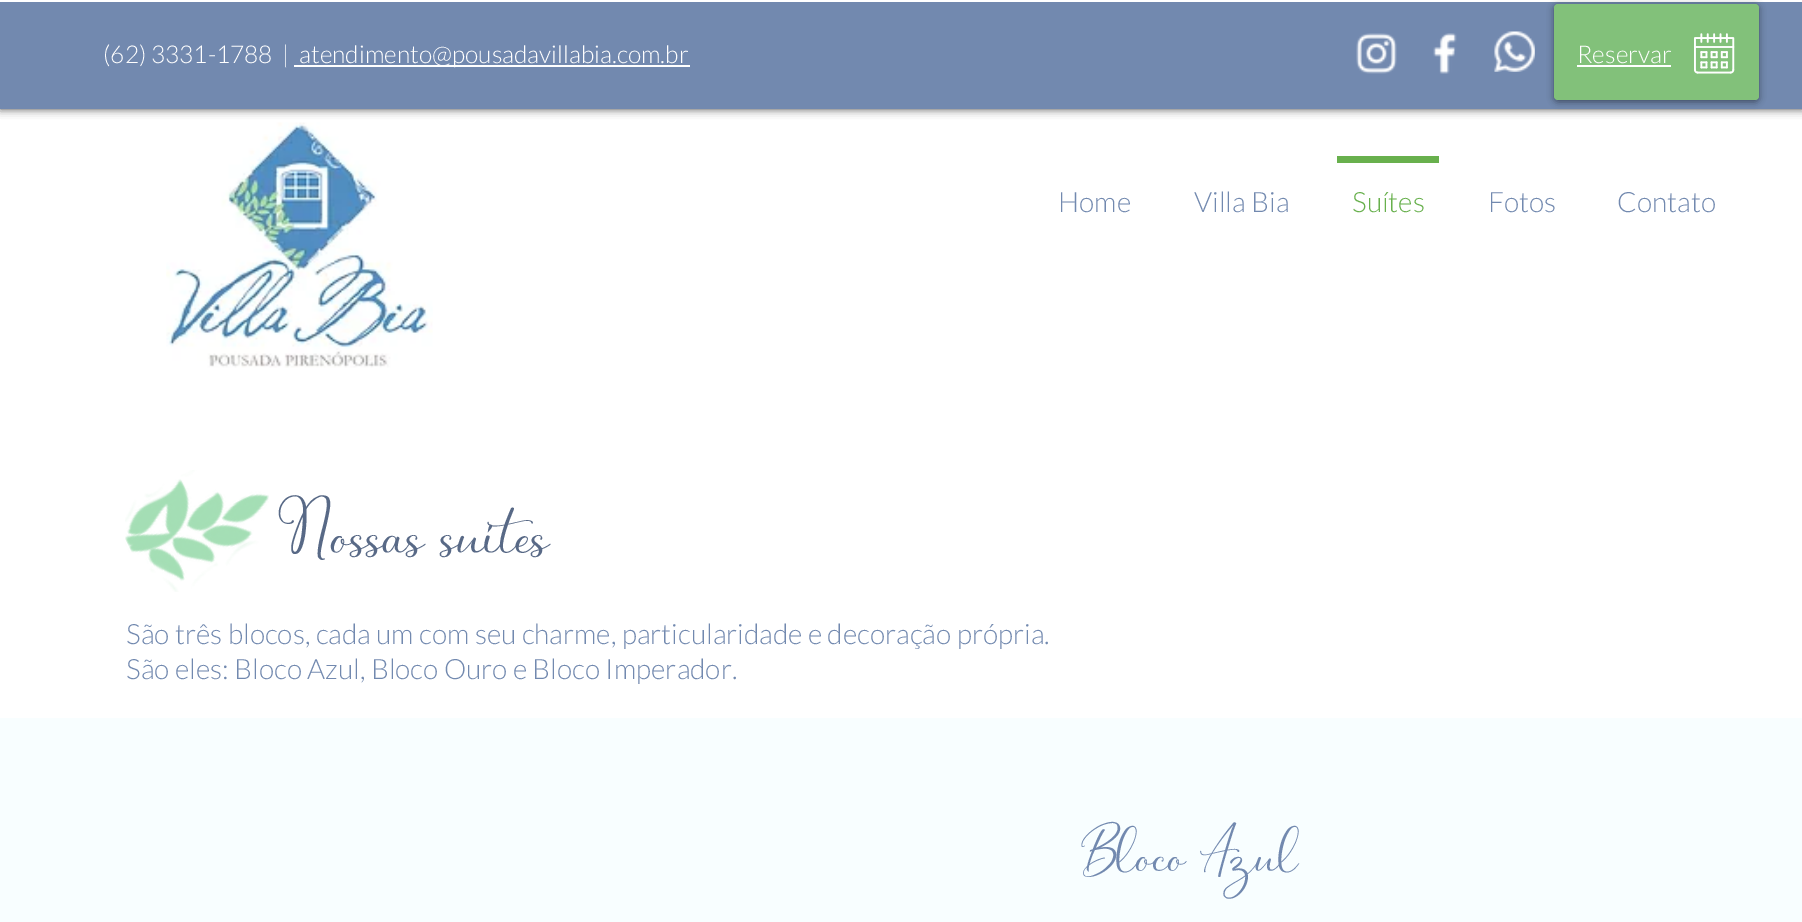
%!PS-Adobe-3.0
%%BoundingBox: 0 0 1802 922
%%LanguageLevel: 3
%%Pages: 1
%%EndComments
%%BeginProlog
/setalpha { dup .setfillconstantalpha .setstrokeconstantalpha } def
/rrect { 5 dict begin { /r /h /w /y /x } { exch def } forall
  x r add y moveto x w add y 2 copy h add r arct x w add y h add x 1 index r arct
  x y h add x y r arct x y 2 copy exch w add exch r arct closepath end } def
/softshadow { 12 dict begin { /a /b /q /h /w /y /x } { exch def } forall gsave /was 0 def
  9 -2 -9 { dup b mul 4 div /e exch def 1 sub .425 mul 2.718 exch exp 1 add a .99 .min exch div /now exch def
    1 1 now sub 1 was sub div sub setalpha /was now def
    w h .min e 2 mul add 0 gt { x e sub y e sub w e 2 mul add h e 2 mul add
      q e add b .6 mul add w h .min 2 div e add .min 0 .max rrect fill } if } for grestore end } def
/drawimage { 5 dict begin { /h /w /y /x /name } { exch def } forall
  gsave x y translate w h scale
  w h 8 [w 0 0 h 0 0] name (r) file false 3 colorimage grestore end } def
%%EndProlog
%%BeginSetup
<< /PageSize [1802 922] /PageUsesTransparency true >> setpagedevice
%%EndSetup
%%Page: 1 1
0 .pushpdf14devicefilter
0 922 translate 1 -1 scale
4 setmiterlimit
1 setgray
0 0 1802 922 rectfill
(images/5.raw) 166 122 267 246 drawimage
0 setgray
0 0 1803 109 0 4.5 0.7 softshadow
1 setgray
0 0 1802 2 rectfill
0.447 0.537 0.686 setrgbcolor
0 2 1802 107 rectfill
(images/1.raw) 1356 33 41 41 drawimage
(images/2.raw) 1433 33 24 41 drawimage
(images/3.raw) 1494 31 41 41 drawimage
0 setgray
1554 5 205 97 4 3.5 0.43 softshadow
0.51 0.757 0.478 setrgbcolor
1554 4 205 96 4 rrect fill
1 setgray
294 65 396 2 rectfill
1577 65 94 2 rectfill
(images/4.raw) 1694 33 41 41 drawimage
0.408 0.69 0.302 setrgbcolor
1337 156 102 7 rectfill
(images/6.raw) 125 470 144 122 drawimage
0.973 0.996 1 setrgbcolor
0 718 1802 204 rectfill
/Lato-Light [24.5 0 0 -24.5 0 0] selectfont
1 setgray
103 63 moveto (\(62\) 3331-1788  |) show
299 63 moveto (atendimento@pousadavillabia.com.br) show
1577 63 moveto (Reservar) show
/Lato-Light [28 0 0 -28 0 0] selectfont
0.447 0.537 0.686 setrgbcolor
1058 212 moveto (Home) show
1194 212 moveto (Villa Bia) show
0.408 0.69 0.302 setrgbcolor
1352 212 moveto (Suítes) show
0.447 0.537 0.686 setrgbcolor
1488 212 moveto (Fotos) show
1617 212 moveto (Contato) show
/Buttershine-Regular [105 0 0 -105 0 0] selectfont
0.345 0.412 0.525 setrgbcolor
277 560 moveto (Nossas suítes) show
/Lato-Light [28 0 0 -28 0 0] selectfont
0.447 0.537 0.686 setrgbcolor
126 644 moveto (São três blocos, cada um com seu charme, particularidade e decoração própria.) show
126 679 moveto (São eles: Bloco Azul, Bloco Ouro e Bloco Imperador.) show
/Buttershine-Regular [87.5 0 0 -87.5 0 0] selectfont
1078 877 moveto (Bloco Azul) show
.poppdf14devicefilter showpage
%%EOF
